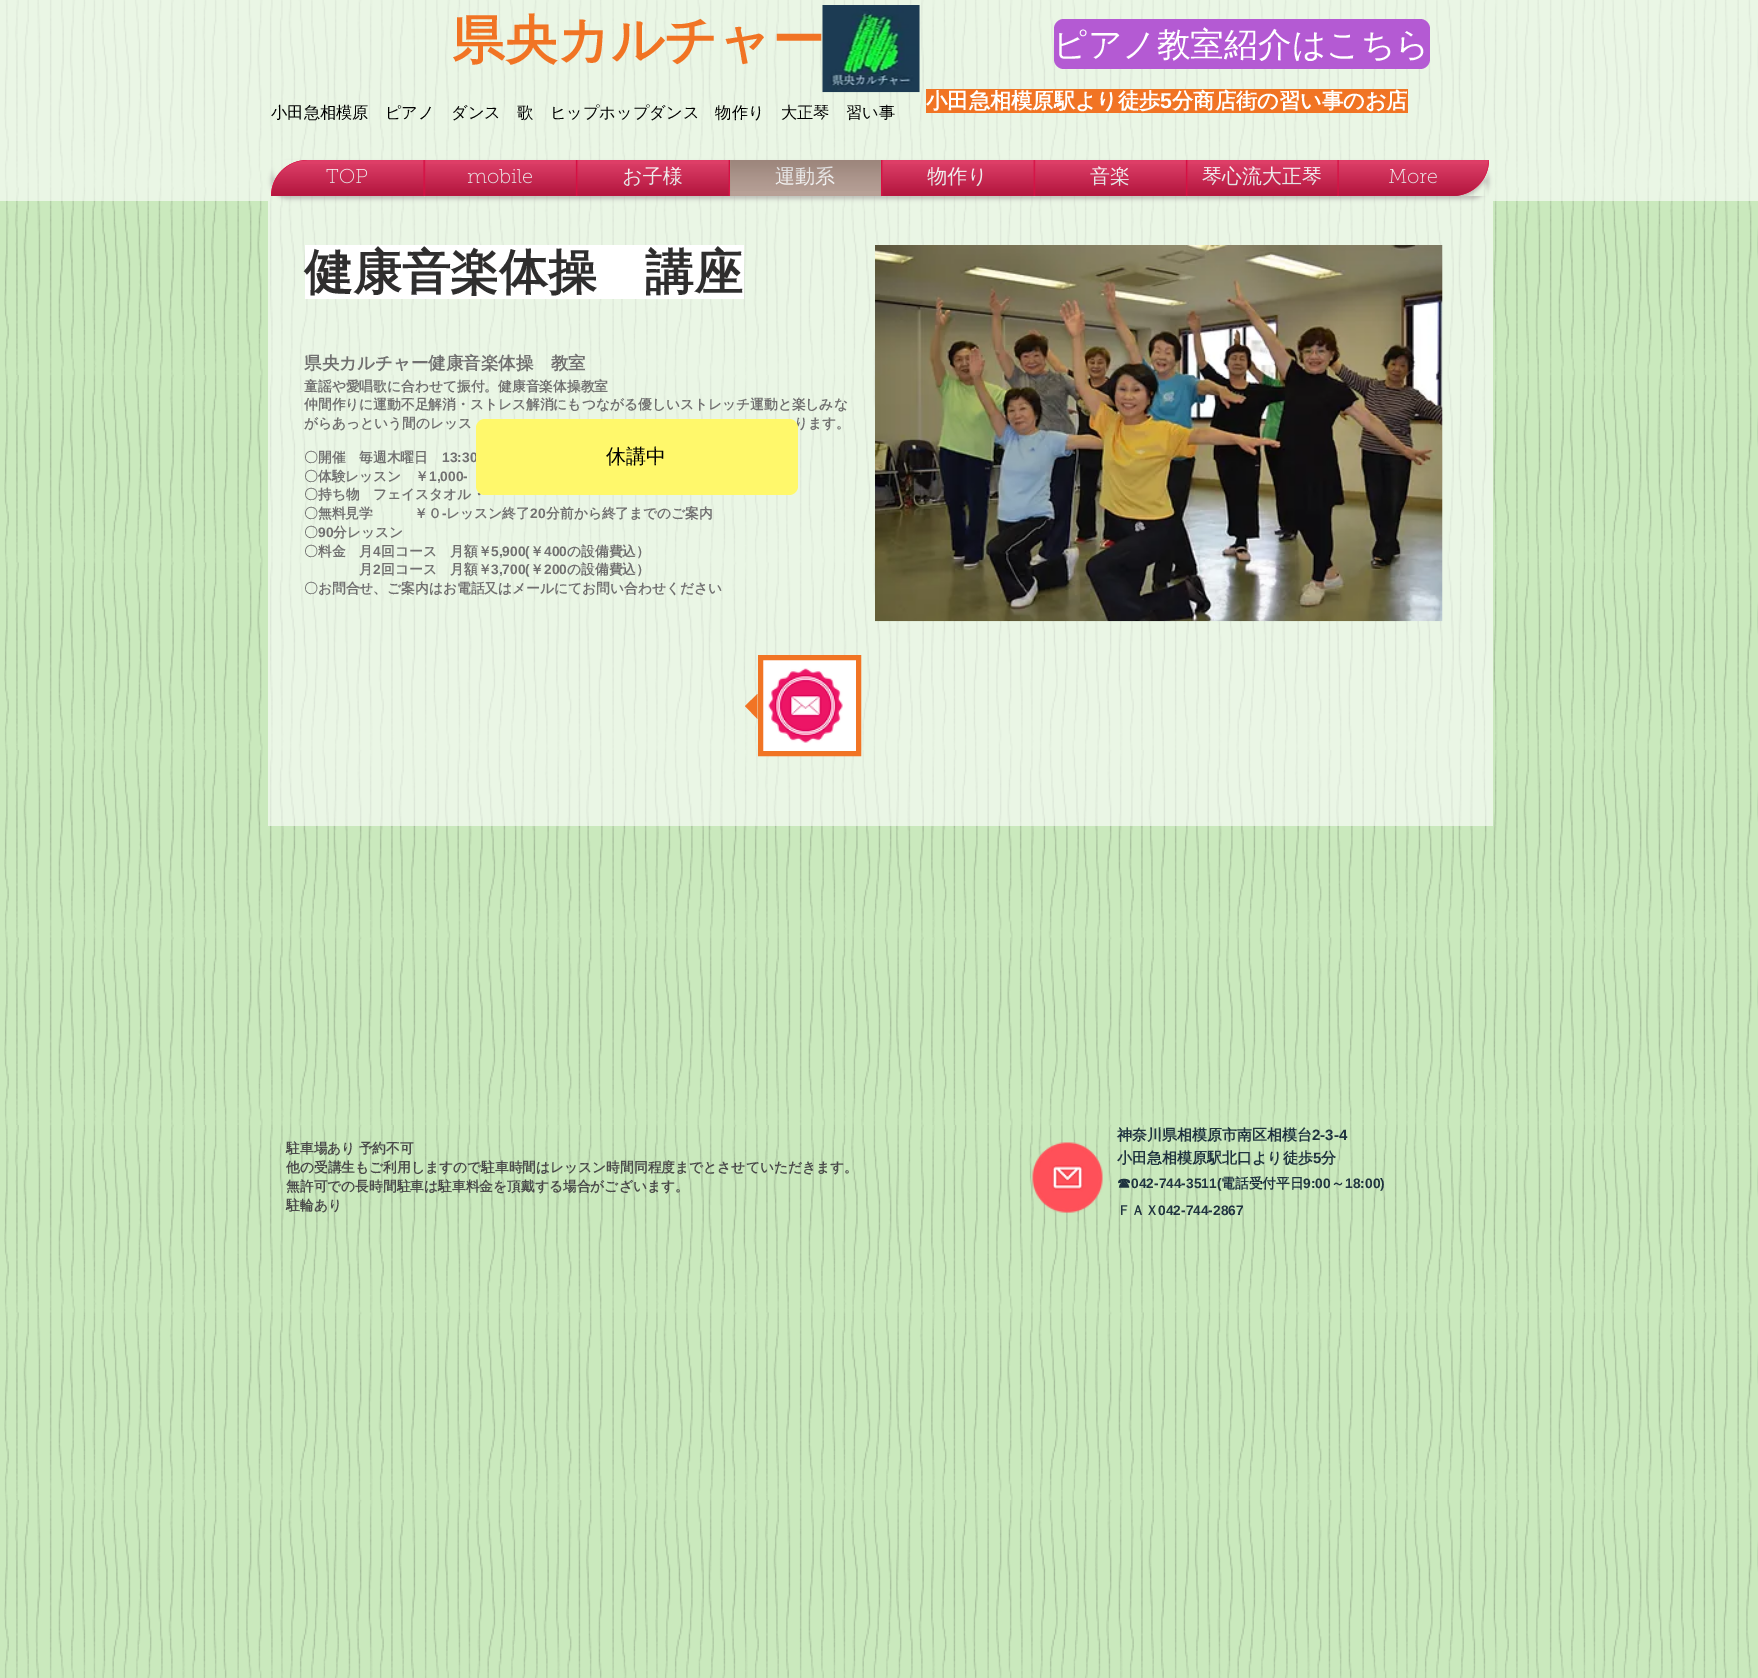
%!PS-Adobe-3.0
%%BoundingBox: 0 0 1758 1678
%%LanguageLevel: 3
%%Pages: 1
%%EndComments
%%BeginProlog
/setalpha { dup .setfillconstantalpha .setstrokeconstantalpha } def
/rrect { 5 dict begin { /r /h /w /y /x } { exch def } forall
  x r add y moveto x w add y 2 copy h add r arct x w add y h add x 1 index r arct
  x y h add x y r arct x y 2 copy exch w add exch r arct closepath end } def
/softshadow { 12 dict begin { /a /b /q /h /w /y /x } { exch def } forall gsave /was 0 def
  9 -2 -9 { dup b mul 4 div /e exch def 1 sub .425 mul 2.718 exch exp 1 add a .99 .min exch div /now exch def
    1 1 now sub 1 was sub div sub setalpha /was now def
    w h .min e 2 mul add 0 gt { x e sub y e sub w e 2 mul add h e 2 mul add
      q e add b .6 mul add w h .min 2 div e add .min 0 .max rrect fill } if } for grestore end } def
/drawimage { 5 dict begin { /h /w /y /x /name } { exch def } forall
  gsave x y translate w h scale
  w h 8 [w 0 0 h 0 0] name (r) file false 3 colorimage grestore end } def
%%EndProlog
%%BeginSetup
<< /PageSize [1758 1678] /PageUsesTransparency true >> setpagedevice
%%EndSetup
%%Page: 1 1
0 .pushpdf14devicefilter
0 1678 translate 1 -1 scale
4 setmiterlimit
0.792 0.914 0.741 setrgbcolor
0 0 1758 1678 rectfill
(images/1.raw) 4 0 1754 1678 drawimage
0.6 setalpha
1 setgray
0 0 1758 201 rectfill
1 setalpha
(images/2.raw) 822 5 98 88 drawimage
0.706 0.353 0.827 setrgbcolor
1054 19 376 50 10 rrect fill
0.945 0.455 0.141 setrgbcolor
926 89 482 24 rectfill
0.6 setalpha
1 setgray
268 201 1225 625 rectfill
1 setalpha
0.635 0.62 0.62 setrgbcolor
271 163 1218 36 36 2 0.6 softshadow
0.839 0.063 0.263 setrgbcolor
newpath 307 160 moveto 1489 160 lineto 1489 180 1473 196 1453 196 curveto 271 196 lineto 271 176 287 160 307 160 curveto closepath fill
(images/3.raw) 272 160 1217 36 drawimage
(images/4.raw) 271 164 1210 32 drawimage
newpath 307 160 moveto 424 160 lineto 424 196 lineto 271 196 lineto 271 176 287 160 307 160 curveto closepath fill
424 160 306 36 rectfill
0.61 setalpha
0.612 0.827 0.647 setrgbcolor
730 160 151 36 rectfill
1 setalpha
0.839 0.063 0.263 setrgbcolor
881 160 457 36 rectfill
newpath 1338 160 moveto 1489 160 lineto 1489 180 1473 196 1453 196 curveto 1338 196 lineto closepath fill
1 setgray
305 245 439 54 rectfill
(images/21.raw) 875 245 568 377 drawimage
0.945 0.455 0.141 setrgbcolor
newpath 757.5 694 moveto 757.5 719 lineto 745 706 lineto closepath fill
1 setgray
newpath 760.5 657.5 moveto 858.5 657.5 lineto 858.5 753.5 lineto 760.5 753.5 lineto closepath gsave fill grestore
0.945 0.455 0.141 setrgbcolor
5 setlinewidth
stroke
(images/22.raw) 768 668 75 75 drawimage
(images/23.raw) 1032 1142 71 71 drawimage
/WenQuanYiZenHei-Bold [52.5 0 0 -52.5 0 0] selectfont
452 58 moveto (県央カルチャー) show
/WenQuanYiZenHei-Medium [33.75 0 0 -33.75 0 0] selectfont
1 setgray
1053 56 moveto (ピアノ教室紹介はこちら) show
/WenQuanYiZenHei-Medium [16.25 0 0 -16.25 0 0] selectfont
0 setgray
271 118 moveto (小田急相模原　ピアノ　ダンス　歌　ヒップホップダンス　物作り　大正琴　習い事) show
/WenQuanYiZenHei-Bold [21.25 0 0 -21.25 0 0] selectfont
1 setgray
926 108 moveto (小田急相模原駅より徒歩) show
/LiberationSans-Bold [21.25 0 0 -21.25 0 0] selectfont
1160 108 moveto (5) show
/WenQuanYiZenHei-Bold [21.25 0 0 -21.25 0 0] selectfont
1172 108 moveto (分商店街の習い事のお店) show
/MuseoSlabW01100-Thin [20 0 0 -20 0 0] selectfont
326 183 moveto (TOP) show
(images/5.raw) 271 160 153 36 drawimage
(images/6.raw) 271 164 153 32 drawimage
467 183 moveto (mobile) show
(images/7.raw) 424 160 152 36 drawimage
(images/8.raw) 424 164 152 33 drawimage
/WenQuanYiZenHei-Medium [20 0 0 -20 0 0] selectfont
622 183 moveto (お子様) show
(images/9.raw) 577 160 152 36 drawimage
(images/10.raw) 577 164 152 32 drawimage
775 183 moveto (運動系) show
(images/11.raw) 729 160 152 31 drawimage
(images/12.raw) 729 160 152 36 drawimage
927 183 moveto (物作り) show
(images/13.raw) 882 160 152 36 drawimage
(images/14.raw) 882 164 152 33 drawimage
1090 183 moveto (音楽) show
(images/15.raw) 1034 160 152 36 drawimage
(images/16.raw) 1034 164 152 33 drawimage
1202 183 moveto (琴心流大正琴) show
(images/17.raw) 1187 160 151 36 drawimage
(images/18.raw) 1187 164 151 33 drawimage
/MuseoSlabW01100-Thin [20 0 0 -20 0 0] selectfont
1388 183 moveto (More) show
(images/19.raw) 1338 160 151 36 drawimage
(images/20.raw) 1338 164 150 32 drawimage
/WenQuanYiZenHei-Bold [48.75 0 0 -48.75 0 0] selectfont
0.184 0.18 0.18 setrgbcolor
304 289 moveto (健康音楽体操　講座) show
/WenQuanYiZenHei-Bold [17.5 0 0 -17.5 0 0] selectfont
0.443 0.439 0.439 setrgbcolor
304 369 moveto (県央カルチャー健康音楽体操　教室) show
/WenQuanYiZenHei-Bold [13.75 0 0 -13.75 0 0] selectfont
304 391 moveto (童謡や愛唱歌に合わせて振付。健康音楽体操教室) show
304 409 moveto (仲間作りに運動不足解消・ストレス解消にもつながる優しいストレッチ運動と楽しみな) show
304 428 moveto (がらあっという間のレッス) show
794 428 moveto (ります。) show
304 462 moveto (〇開催　毎週木曜日) show
/LiberationSans-Bold [13.75 0 0 -13.75 0 0] selectfont
442 462 moveto (13:30) show
/WenQuanYiZenHei-Bold [13.75 0 0 -13.75 0 0] selectfont
304 481 moveto (〇体験レッスン　￥) show
/LiberationSans-Bold [13.75 0 0 -13.75 0 0] selectfont
429 481 moveto (1,000-) show
/WenQuanYiZenHei-Bold [13.75 0 0 -13.75 0 0] selectfont
304 499 moveto (〇持ち物　フェイスタオル・) show
304 518 moveto (〇無料見学　　　￥０) show
/LiberationSans-Bold [13.75 0 0 -13.75 0 0] selectfont
442 518 moveto (-) show
/WenQuanYiZenHei-Bold [13.75 0 0 -13.75 0 0] selectfont
446 518 moveto (レッスン終了) show
/LiberationSans-Bold [13.75 0 0 -13.75 0 0] selectfont
530 518 moveto (20) show
/WenQuanYiZenHei-Bold [13.75 0 0 -13.75 0 0] selectfont
546 518 moveto (分前から終了までのご案内) show
304 537 moveto (〇) show
/LiberationSans-Bold [13.75 0 0 -13.75 0 0] selectfont
318 537 moveto (90) show
/WenQuanYiZenHei-Bold [13.75 0 0 -13.75 0 0] selectfont
333 537 moveto (分レッスン) show
304 556 moveto (〇料金　月) show
/LiberationSans-Bold [13.75 0 0 -13.75 0 0] selectfont
373 556 moveto (4) show
/WenQuanYiZenHei-Bold [13.75 0 0 -13.75 0 0] selectfont
381 556 moveto (回コース　月額￥) show
/LiberationSans-Bold [13.75 0 0 -13.75 0 0] selectfont
491 556 moveto (5,900\() show
/WenQuanYiZenHei-Bold [13.75 0 0 -13.75 0 0] selectfont
530 556 moveto (￥) show
/LiberationSans-Bold [13.75 0 0 -13.75 0 0] selectfont
544 556 moveto (400) show
/WenQuanYiZenHei-Bold [13.75 0 0 -13.75 0 0] selectfont
567 556 moveto (の設備費込）) show
359 574 moveto (月) show
/LiberationSans-Bold [13.75 0 0 -13.75 0 0] selectfont
373 574 moveto (2) show
/WenQuanYiZenHei-Bold [13.75 0 0 -13.75 0 0] selectfont
381 574 moveto (回コース　月額￥) show
/LiberationSans-Bold [13.75 0 0 -13.75 0 0] selectfont
491 574 moveto (3,700\() show
/WenQuanYiZenHei-Bold [13.75 0 0 -13.75 0 0] selectfont
530 574 moveto (￥) show
/LiberationSans-Bold [13.75 0 0 -13.75 0 0] selectfont
544 574 moveto (200) show
/WenQuanYiZenHei-Bold [13.75 0 0 -13.75 0 0] selectfont
567 574 moveto (の設備費込）) show
304 593 moveto (〇お問合せ、ご案内はお電話又はメールにてお問い合わせください) show
1 0.973 0.42 setrgbcolor
476 419 322 76 9 rrect fill
/WenQuanYiZenHei-Medium [20 0 0 -20 0 0] selectfont
0 setgray
606 463 moveto (休講中) show
/WenQuanYiZenHei-Bold [13.75 0 0 -13.75 0 0] selectfont
0.29 setgray
286 1153 moveto -1 0 32 (駐車場あり 予約不可) widthshow
286 1172 moveto (他の受講生もご利用しますので駐車時間はレッスン時間同程度までとさせていただきます。) show
286 1191 moveto (無許可での長時間駐車は駐車料金を頂戴する場合がございます。) show
286 1210 moveto (駐輪あり) show
/WenQuanYiZenHei-Bold [15 0 0 -15 0 0] selectfont
0.122 0.2 0.247 setrgbcolor
1117 1140 moveto (神奈川県相模原市南区相模台) show
/LiberationSans-Bold [15 0 0 -15 0 0] selectfont
1312 1140 moveto (2-3-4) show
/WenQuanYiZenHei-Bold [15 0 0 -15 0 0] selectfont
1117 1163 moveto (小田急相模原駅北口より徒歩) show
/LiberationSans-Bold [15 0 0 -15 0 0] selectfont
1313 1163 moveto (5) show
/WenQuanYiZenHei-Bold [15 0 0 -15 0 0] selectfont
1321 1163 moveto (分) show
/WenQuanYiZenHei-Bold [13.75 0 0 -13.75 0 0] selectfont
1117 1188 moveto (☎) show
/LiberationSans-Bold [13.75 0 0 -13.75 0 0] selectfont
1131 1188 moveto (042-744-3511\() show
/WenQuanYiZenHei-Bold [13.75 0 0 -13.75 0 0] selectfont
1221 1188 moveto (電話受付平日) show
/LiberationSans-Bold [13.75 0 0 -13.75 0 0] selectfont
1303 1188 moveto (9:00) show
/WenQuanYiZenHei-Bold [13.75 0 0 -13.75 0 0] selectfont
1331 1188 moveto (～) show
/LiberationSans-Bold [13.75 0 0 -13.75 0 0] selectfont
1345 1188 moveto (18:00\)) show
/WenQuanYiZenHei-Bold [13.75 0 0 -13.75 0 0] selectfont
1117 1215 moveto (ＦＡＸ) show
/LiberationSans-Bold [13.75 0 0 -13.75 0 0] selectfont
1158 1215 moveto (042-744-2867) show
.poppdf14devicefilter showpage
%%EOF
